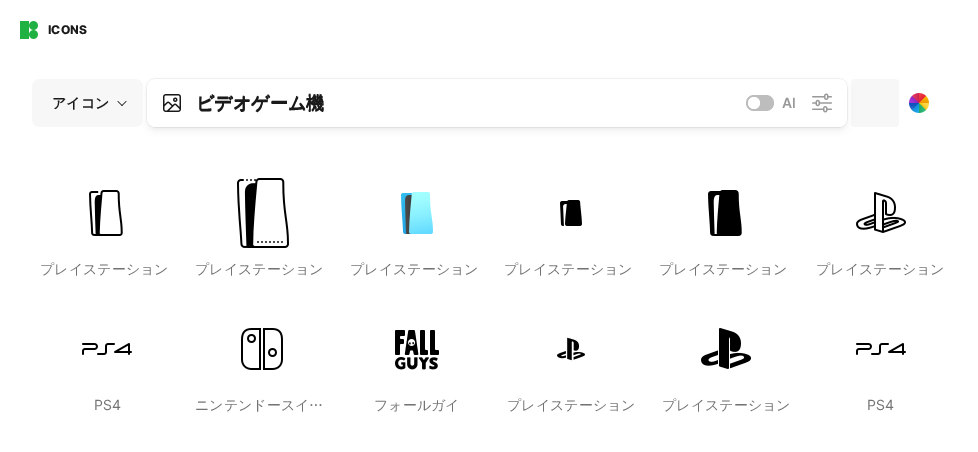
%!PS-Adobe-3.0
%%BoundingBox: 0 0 978 452
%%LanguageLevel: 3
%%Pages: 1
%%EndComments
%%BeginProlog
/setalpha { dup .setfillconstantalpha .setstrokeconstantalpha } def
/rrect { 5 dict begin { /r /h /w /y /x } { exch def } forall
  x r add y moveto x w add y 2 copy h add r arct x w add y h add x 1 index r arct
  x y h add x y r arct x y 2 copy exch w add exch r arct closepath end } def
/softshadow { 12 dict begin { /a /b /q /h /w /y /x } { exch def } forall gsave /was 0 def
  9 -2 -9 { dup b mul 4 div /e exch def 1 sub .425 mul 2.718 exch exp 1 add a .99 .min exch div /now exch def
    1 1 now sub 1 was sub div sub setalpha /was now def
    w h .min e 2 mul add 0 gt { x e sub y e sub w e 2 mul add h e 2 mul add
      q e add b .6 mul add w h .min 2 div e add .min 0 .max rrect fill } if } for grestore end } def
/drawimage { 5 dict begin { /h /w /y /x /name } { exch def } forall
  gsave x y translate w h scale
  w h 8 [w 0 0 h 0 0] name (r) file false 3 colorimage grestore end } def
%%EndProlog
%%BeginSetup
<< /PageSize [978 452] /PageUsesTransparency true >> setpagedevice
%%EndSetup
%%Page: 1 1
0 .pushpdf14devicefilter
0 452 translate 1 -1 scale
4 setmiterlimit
1 setgray
0 0 978 452 rectfill
(images/1.raw) 20 21 18 18 drawimage
0.969 setgray
851 79 48 48 4 rrect fill
0.376 setgray
149 85 696 44 6 4 0.15 softshadow
0.969 setgray
32 79 111 48 8 rrect fill
0.102 setgray
newpath 118 101 moveto 122.5 105.5 lineto 122 106 lineto 117.5 101.5 lineto closepath fill
newpath 121.5 105.5 moveto 126 101 lineto 126.5 101.5 lineto 122 106 lineto closepath fill
0.376 setgray
147 79 700 48 8 0.5 0.31 softshadow
1 setgray
147 79 700 48 8 rrect fill
(images/2.raw) 163 94 18 18 drawimage
0.741 setgray
746 95 28 16 8 rrect fill
1 setgray
newpath 754 103 6 0 360 arc closepath fill
(images/3.raw) 812 93 20 20 drawimage
(images/4.raw) 909 93 20 20 drawimage
(images/5.raw) 89 190 34 46 drawimage
(images/6.raw) 237 178 52 70 drawimage
(images/7.raw) 401 192 32 42 drawimage
(images/8.raw) 560 200 22 26 drawimage
(images/9.raw) 708 190 34 46 drawimage
(images/10.raw) 856 192 50 41 drawimage
(images/11.raw) 82 343 50 12 drawimage
(images/12.raw) 241 328 42 42 drawimage
(images/13.raw) 395 330 44 40 drawimage
(images/14.raw) 557 337 28 24 drawimage
(images/15.raw) 701 328 50 41 drawimage
(images/11.raw) 856 343 50 12 drawimage
/Inter-ExtraBold [12 0 0 -12 0 0] selectfont
0.102 setgray
48 34 moveto (ICONS) show
/WenQuanYiZenHei-Bold [14 0 0 -14 0 0] selectfont
52 108 moveto (アイコン) show
/WenQuanYiZenHei-Bold [18 0 0 -18 0 0] selectfont
196 109 moveto (ビデオゲーム機) show
196 110 moveto (ビデオゲーム機) show
/Inter-SemiBold [14 0 0 -14 0 0] selectfont
0.6 setgray
782 108 moveto (AI) show
/WenQuanYiZenHei-Medium [14 0 0 -14 0 0] selectfont
0.451 setgray
40 274 moveto (プレイステーション) show
195 274 moveto (プレイステーション) show
350 274 moveto (プレイステーション) show
504 274 moveto (プレイステーション) show
659 274 moveto (プレイステーション) show
816 274 moveto (プレイステーション) show
/Inter-Regular [14 0 0 -14 0 0] selectfont
94 410 moveto (PS4) show
/WenQuanYiZenHei-Medium [14 0 0 -14 0 0] selectfont
195 410 moveto (ニンテンドースイ…) show
374 410 moveto (フォールガイ) show
507 410 moveto (プレイステーション) show
662 410 moveto (プレイステーション) show
/Inter-Regular [14 0 0 -14 0 0] selectfont
867 410 moveto (PS4) show
.poppdf14devicefilter showpage
%%EOF
